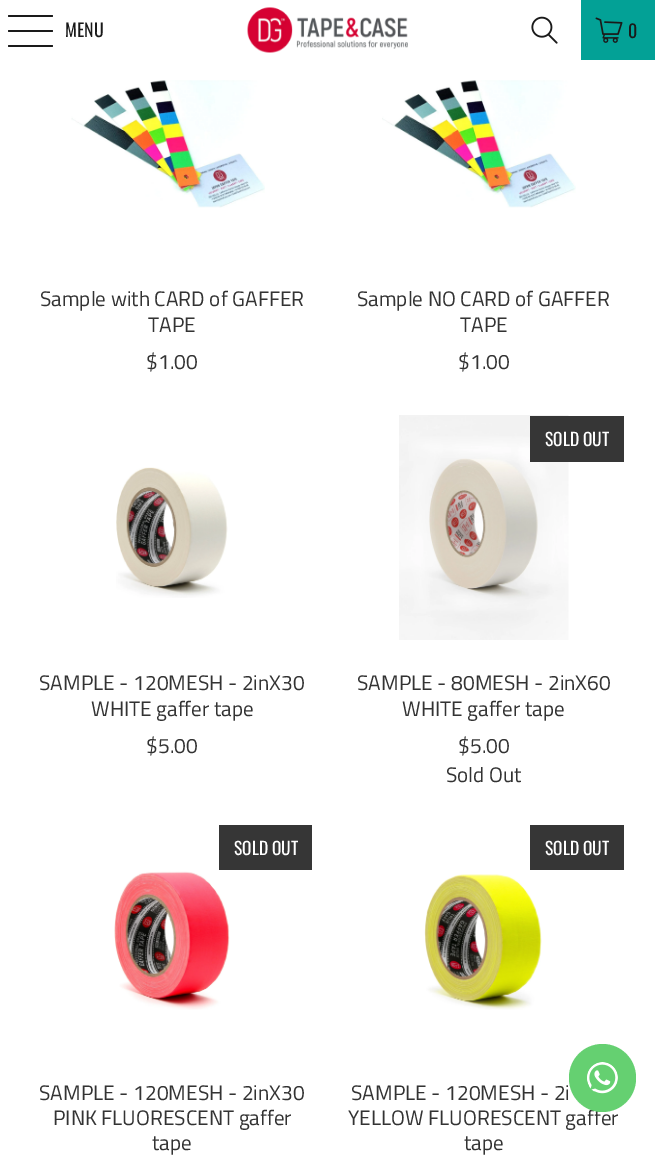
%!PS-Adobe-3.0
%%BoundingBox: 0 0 655 1163
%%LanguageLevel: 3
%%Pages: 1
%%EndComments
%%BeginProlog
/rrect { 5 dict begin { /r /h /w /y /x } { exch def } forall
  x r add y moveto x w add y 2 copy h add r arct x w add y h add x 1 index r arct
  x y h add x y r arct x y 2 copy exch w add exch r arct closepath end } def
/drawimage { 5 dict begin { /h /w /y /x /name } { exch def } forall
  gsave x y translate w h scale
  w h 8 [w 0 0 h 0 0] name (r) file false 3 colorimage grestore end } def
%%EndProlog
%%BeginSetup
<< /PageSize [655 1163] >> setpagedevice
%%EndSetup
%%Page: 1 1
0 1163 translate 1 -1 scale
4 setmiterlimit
1 setgray
0 0 655 1163 rectfill
0.102 setgray
8 15 45 2 1 rrect fill
8 30 45 2 1 rrect fill
8 45 45 2 1 rrect fill
(images/1.raw) 247 7 161 46 drawimage
(images/2.raw) 531 16 27 28 drawimage
0.012 0.631 0.588 setrgbcolor
581 0 74 60 rectfill
(images/3.raw) 595 17 28 26 drawimage
(images/4.raw) 71 80 194 128 drawimage
(images/5.raw) 382 80 194 128 drawimage
(images/6.raw) 116 467 112 131 drawimage
(images/7.raw) 399 415 170 225 drawimage
0.212 setgray
530 416 94 46 rectfill
219 825 93 45 rectfill
(images/8.raw) 114 871 116 139 drawimage
530 825 94 45 rectfill
(images/9.raw) 424 874 118 136 drawimage
/Oswald-Regular [18 0 0 -18 0 0] selectfont
0.102 setgray
65 37 moveto (MENU) show
628 38 moveto (0) show
/TitilliumWeb-Regular [21 0 0 -21 0 0] selectfont
0.2 setgray
40 306 moveto (Sample with CARD of GAFFER) show
148 332 moveto (TAPE) show
146 369 moveto ($1.00) show
357 306 moveto (Sample NO CARD of GAFFER) show
460 332 moveto (TAPE) show
458 369 moveto ($1.00) show
39 690 moveto (SAMPLE - 120MESH - 2inX30) show
91 716 moveto (WHITE gaffer tape) show
146 753 moveto ($5.00) show
/Oswald-Regular [17.5 0 0 -17.5 0 0] selectfont
1 setgray
545 446 moveto (SOLD OUT) show
/TitilliumWeb-Regular [21 0 0 -21 0 0] selectfont
0.2 setgray
357 690 moveto (SAMPLE - 80MESH - 2inX60) show
402 716 moveto (WHITE gaffer tape) show
458 753 moveto ($5.00) show
446 782 moveto (Sold Out) show
/Oswald-Regular [17.5 0 0 -17.5 0 0] selectfont
1 setgray
234 855 moveto (SOLD OUT) show
/TitilliumWeb-Regular [21 0 0 -21 0 0] selectfont
0.2 setgray
39 1100 moveto (SAMPLE - 120MESH - 2inX30) show
53 1125 moveto (PINK FLUORESCENT gaffer) show
152 1150 moveto (tape) show
/Oswald-Regular [17.5 0 0 -17.5 0 0] selectfont
1 setgray
545 855 moveto (SOLD OUT) show
/TitilliumWeb-Regular [21 0 0 -21 0 0] selectfont
0.2 setgray
351 1100 moveto (SAMPLE - 120MESH - 2i) show
348 1125 moveto (YELLOW FLUORESCENT gaffer) show
464 1150 moveto (tape) show
0.396 0.816 0.443 setrgbcolor
569 1044 67 68 33.5 rrect fill
(images/10.raw) 587 1062 31 32 drawimage
showpage
%%EOF
